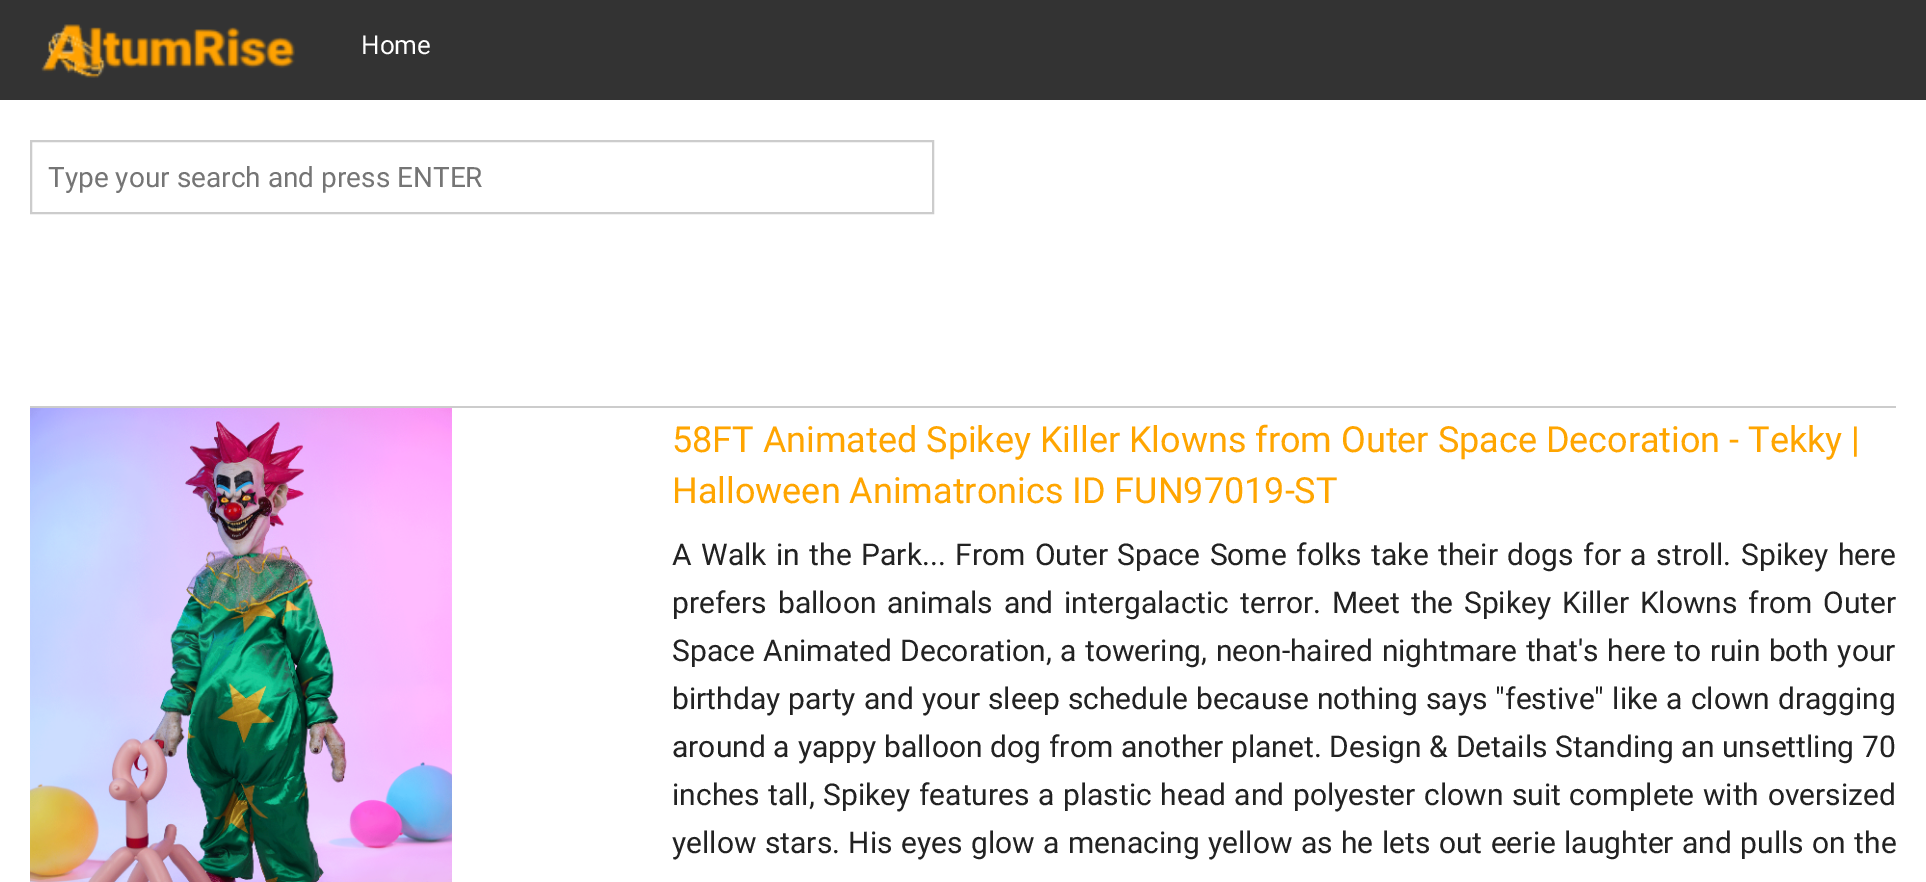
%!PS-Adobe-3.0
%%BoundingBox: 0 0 1926 882
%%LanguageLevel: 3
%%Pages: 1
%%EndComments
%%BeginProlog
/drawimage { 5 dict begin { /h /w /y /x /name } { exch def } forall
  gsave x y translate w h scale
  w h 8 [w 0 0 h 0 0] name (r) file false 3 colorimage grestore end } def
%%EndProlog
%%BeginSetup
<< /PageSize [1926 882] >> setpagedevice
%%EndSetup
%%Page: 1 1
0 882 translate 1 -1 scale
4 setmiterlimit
1 setgray
0 0 1926 882 rectfill
0.2 setgray
0 0 1926 100 rectfill
(images/1.raw) 41 24 254 54 drawimage
0.8 setgray
2 setlinewidth
31 141 902 72 rectstroke
30 406 1866 2 rectfill
(images/2.raw) 30 408 422 474 drawimage
/Roboto-Regular [26 0 0 -26 0 0] selectfont
1 setgray
361 54 moveto (Home) show
/Roboto-Regular [28 0 0 -28 0 0] selectfont
0.459 setgray
48 187 moveto (Type your search and press ENTER) show
/Roboto-Regular [36 0 0 -36 0 0] selectfont
1 0.647 0 setrgbcolor
672 452 moveto (58FT Animated Spikey Killer Klowns from Outer Space Decoration - Tekky |) show
672 503 moveto (Halloween Animatronics ID FUN97019-ST) show
/Roboto-Regular [30 0 0 -30 0 0] selectfont
0.133 setgray
672 565 moveto 2.1 0 32 (A Walk in the Park... From Outer Space Some folks take their dogs for a stroll. Spikey here) widthshow
672 613 moveto 3.4 0 32 (prefers balloon animals and intergalactic terror. Meet the Spikey Killer Klowns from Outer) widthshow
672 661 moveto 1 0 32 (Space Animated Decoration, a towering, neon-haired nightmare that's here to ruin both your) widthshow
672 709 moveto 0.75 0 32 (birthday party and your sleep schedule because nothing says "festive" like a clown dragging) widthshow
672 757 moveto 0.4 0 32 (around a yappy balloon dog from another planet. Design & Details Standing an unsettling 70) widthshow
672 805 moveto 1.1 0 32 (inches tall, Spikey features a plastic head and polyester clown suit complete with oversized) widthshow
672 853 moveto 1 0 32 (yellow stars. His eyes glow a menacing yellow as he lets out eerie laughter and pulls on the) widthshow
showpage
%%EOF
